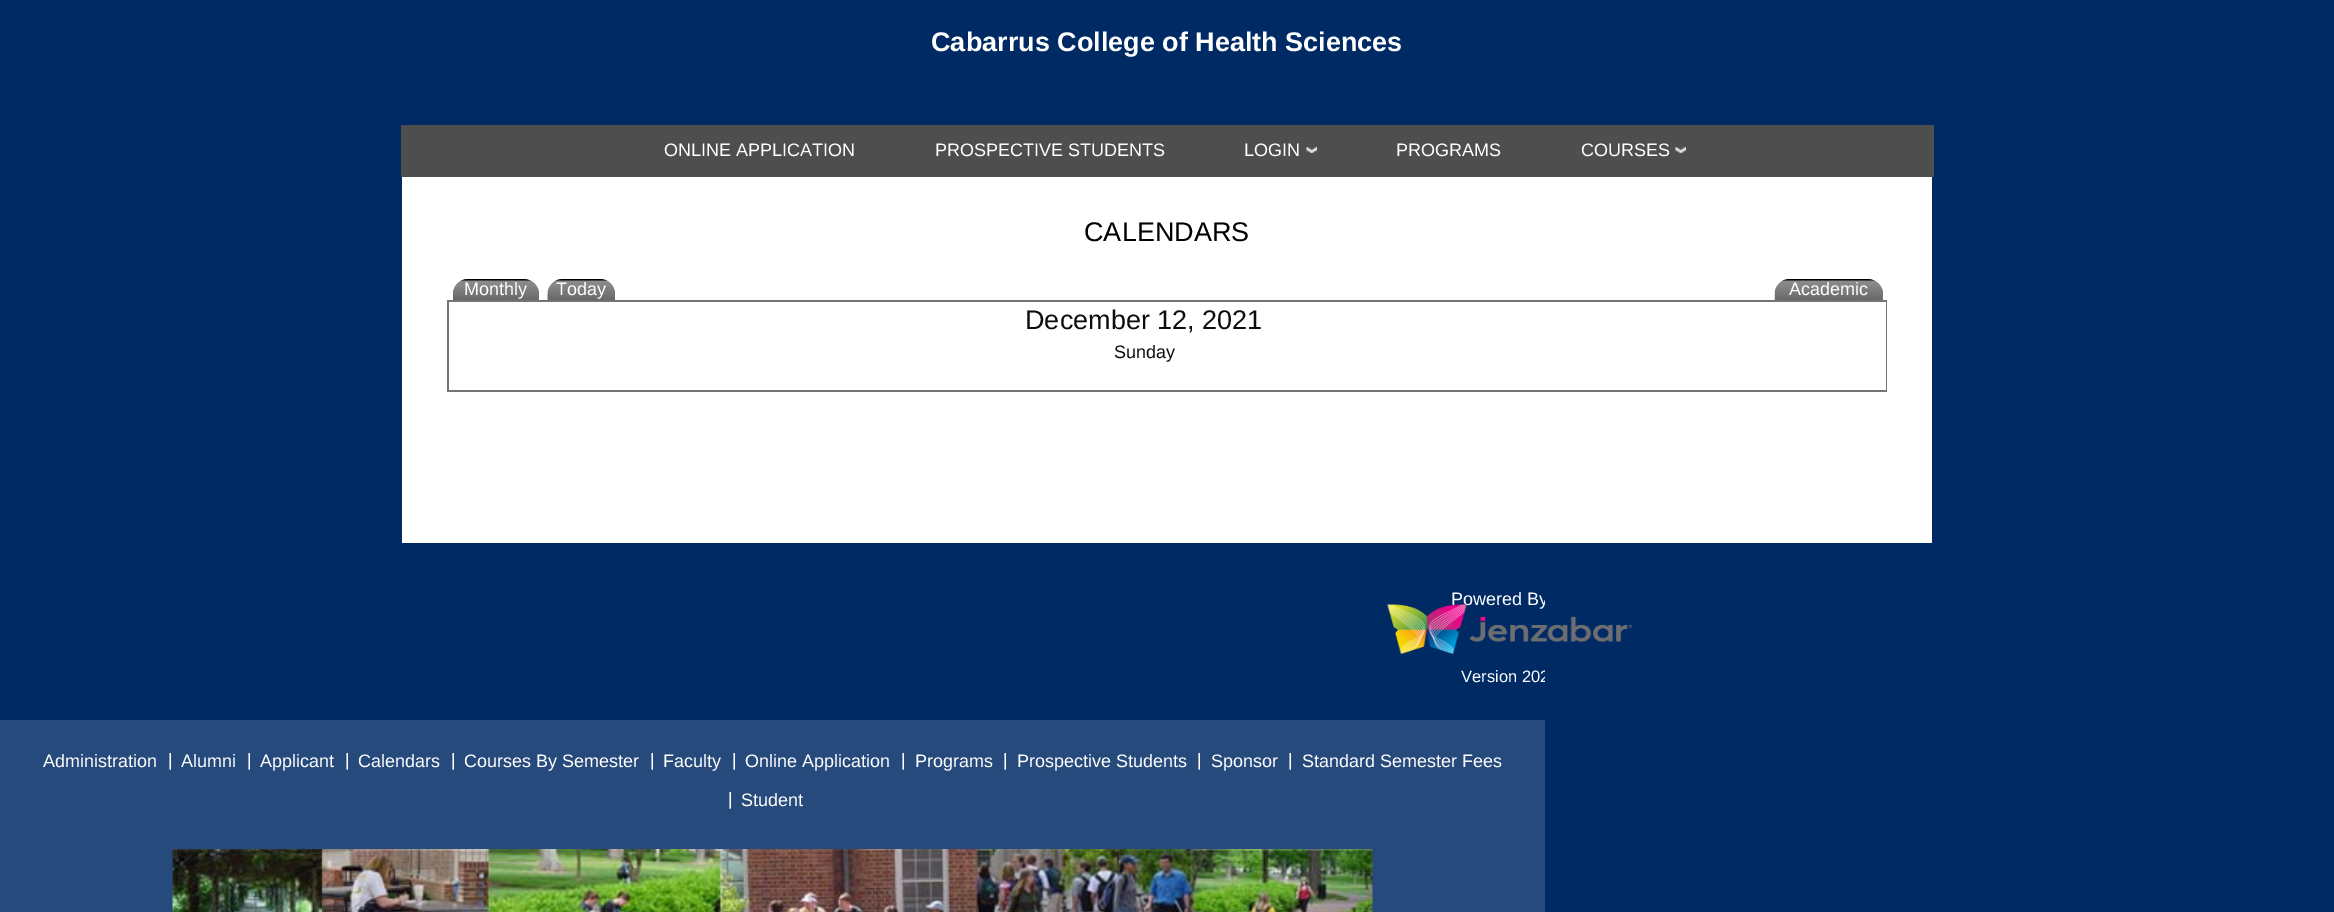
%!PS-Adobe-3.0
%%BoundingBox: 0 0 2334 912
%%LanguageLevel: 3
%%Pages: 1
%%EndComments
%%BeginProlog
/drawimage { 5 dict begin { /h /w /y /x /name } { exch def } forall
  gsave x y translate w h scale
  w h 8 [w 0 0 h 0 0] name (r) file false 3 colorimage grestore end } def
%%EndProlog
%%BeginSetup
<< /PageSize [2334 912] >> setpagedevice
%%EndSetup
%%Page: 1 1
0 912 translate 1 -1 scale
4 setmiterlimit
0 0.165 0.392 setrgbcolor
0 0 2334 912 rectfill
0.306 setgray
401 125 1533 52 rectfill
(images/1.raw) 1306 147 11 6 drawimage
(images/2.raw) 1675 147 11 6 drawimage
1 setgray
402 177 1530 366 rectfill
0.451 0.459 0.459 setrgbcolor
newpath 468 279 moveto 524 279 lineto 532.5 279 539 285.5 539 294 curveto 539 300 lineto 453 300 lineto 453 294 lineto 453 285.5 459.5 279 468 279 curveto closepath fill
(images/3.raw) 453 279 85 21 drawimage
(images/4.raw) 547 279 68 21 drawimage
newpath 1790 279 moveto 1868 279 lineto 1876.5 279 1883 285.5 1883 294 curveto 1883 300 lineto 1775 300 lineto 1775 294 lineto 1775 285.5 1781.5 279 1790 279 curveto closepath fill
(images/5.raw) 1774 279 108 21 drawimage
447 300 1440 2 rectfill
1886 300 1 92 rectfill
447 390 1440 2 rectfill
447 300 2 92 rectfill
0.149 0.29 0.482 setrgbcolor
0 720 1545 192 rectfill
(images/7.raw) 172 849 1201 63 drawimage
/LiberationSans-Bold [27 0 0 -27 0 0] selectfont
1 setgray
931 51 moveto (Cabarrus College of Health Sciences) show
/LiberationSans-Regular [18 0 0 -18 0 0] selectfont
664 156 moveto (ONLINE APPLICATION) show
935 156 moveto (PROSPECTIVE STUDENTS) show
1244 156 moveto (LOGIN) show
1396 156 moveto (PROGRAMS) show
1581 156 moveto (COURSES) show
/LiberationSans-Regular [27 0 0 -27 0 0] selectfont
0 setgray
1084 241 moveto (CALENDARS) show
/LiberationSans-Regular [18 0 0 -18 0 0] selectfont
1 setgray
464 295 moveto (Monthly) show
556 295 moveto (Today) show
1789 295 moveto (Academic) show
/LiberationSans-Regular [27 0 0 -27 0 0] selectfont
0.051 setgray
1025 329 moveto (December 12, 2021) show
/LiberationSans-Regular [18 0 0 -18 0 0] selectfont
1114 358 moveto (Sunday) show
gsave
0 588 1545 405 rectclip
1 setgray
1451 605 moveto (Powered By) show
grestore
(images/6.raw) 1387 604 245 50 drawimage
gsave
0 588 1545 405 rectclip
/LiberationSans-Regular [16.5 0 0 -16.5 0 0] selectfont
1 setgray
1461 682 moveto (Version 202) show
grestore
1 setgray
43 767 moveto (Administration) show
168 766 moveto (|) show
181 767 moveto (Alumni) show
247 766 moveto (|) show
260 767 moveto (Applicant) show
345 766 moveto (|) show
358 767 moveto (Calendars) show
451 766 moveto (|) show
464 767 moveto (Courses By Semester) show
650 766 moveto (|) show
663 767 moveto (Faculty) show
732 766 moveto (|) show
745 767 moveto (Online Application) show
901 766 moveto (|) show
915 767 moveto (Programs) show
1003 766 moveto (|) show
1017 767 moveto (Prospective Students) show
1197 766 moveto (|) show
1211 767 moveto (Sponsor) show
1288 766 moveto (|) show
1302 767 moveto (Standard Semester Fees) show
728 805 moveto (|) show
741 806 moveto (Student) show
showpage
%%EOF
